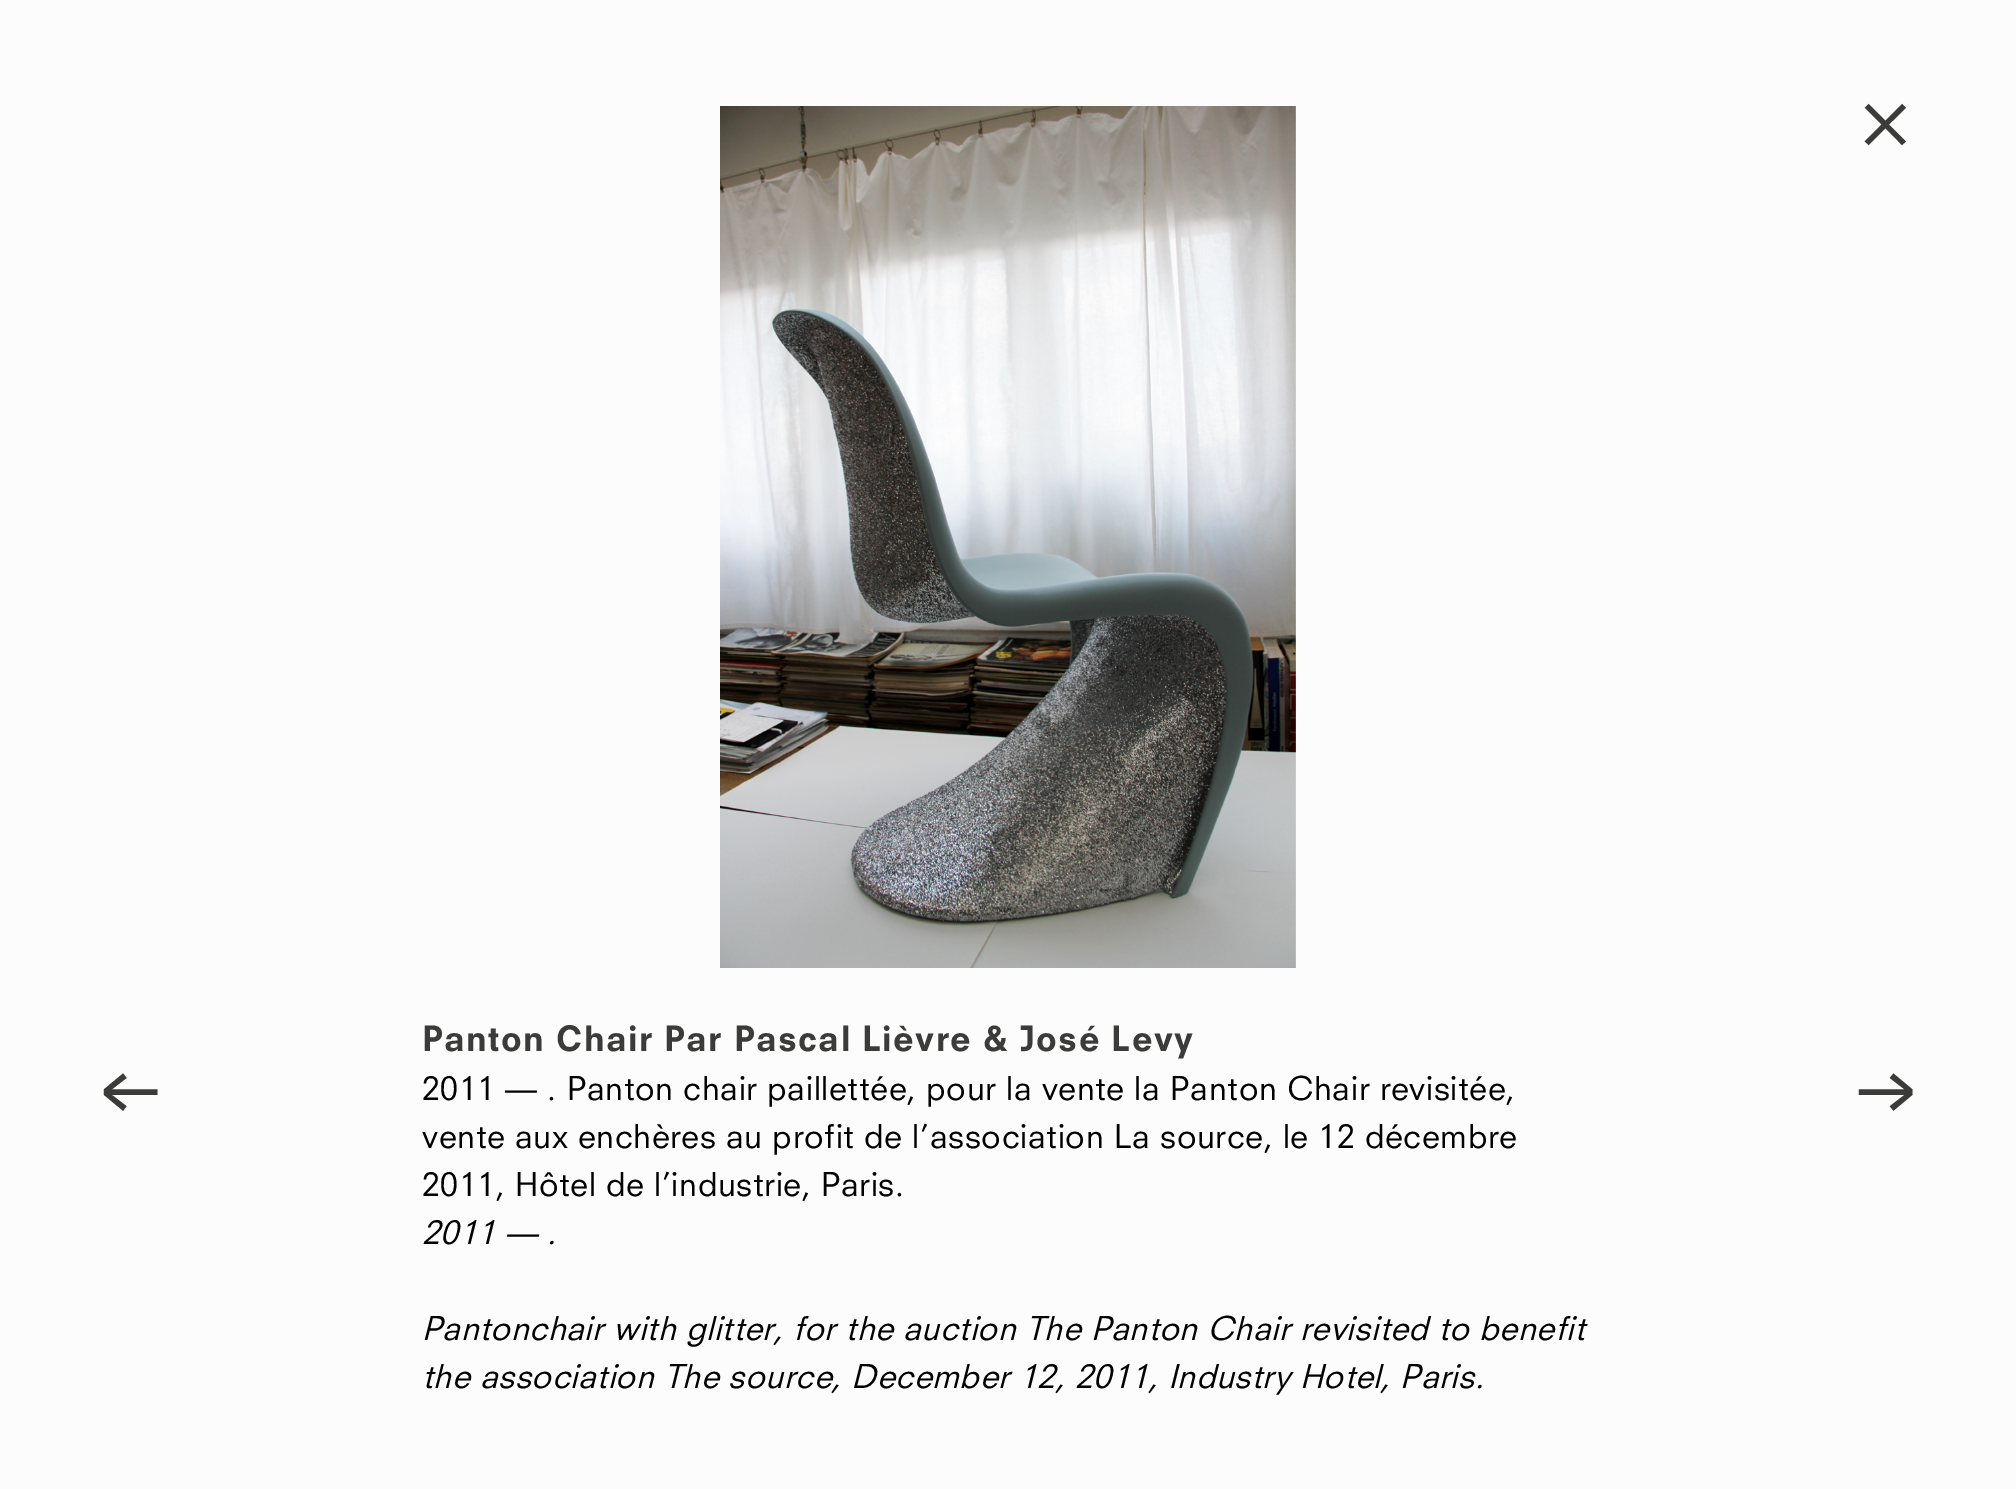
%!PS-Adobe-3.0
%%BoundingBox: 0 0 2016 1489
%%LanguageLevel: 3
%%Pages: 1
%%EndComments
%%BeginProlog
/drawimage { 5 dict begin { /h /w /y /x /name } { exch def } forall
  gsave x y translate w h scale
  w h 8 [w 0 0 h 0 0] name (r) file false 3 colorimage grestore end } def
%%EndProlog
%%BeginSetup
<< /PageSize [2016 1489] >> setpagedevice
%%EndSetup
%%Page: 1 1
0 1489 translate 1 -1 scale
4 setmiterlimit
0.988 setgray
0 0 2016 1489 rectfill
(images/1.raw) 720 106 576 862 drawimage
/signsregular-Regular [64 0 0 -64 0 0] selectfont
0.231 0.231 0.227 setrgbcolor
1856 143 moveto (X) show
/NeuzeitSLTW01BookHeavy-Black [34 0 0 -34 0 0] selectfont
422 1051 moveto 1.35 0 (Panton Chair Par Pascal Lièvre & José Levy) ashow
/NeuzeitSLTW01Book-Regular [32 0 0 -32 0 0] selectfont
0 setgray
422 1100 moveto 0.65 0 (2011 — . Panton chair paillettée, pour la vente la Panton Chair revisitée,) ashow
422 1148 moveto 0.65 0 (vente aux enchères au profit de l’association La source, le 12 décembre) ashow
422 1196 moveto 0.65 0 (2011, Hôtel de l’industrie, Paris.) ashow
/NeuzeitSLTW01Book-Italic [32 0 0 -32 0 0] selectfont
422 1244 moveto 0.65 0 (2011 — .) ashow
422 1340 moveto 0.65 0 (Pantonchair with glitter, for the auction The Panton Chair revisited to benefit) ashow
422 1388 moveto 0.65 0 (the association The source, December 12, 2011, Industry Hotel, Paris.) ashow
/signsregular-Regular [64 0 0 -64 0 0] selectfont
0.231 0.231 0.227 setrgbcolor
101 1111 moveto (←) show
1856 1111 moveto (→) show
showpage
%%EOF
